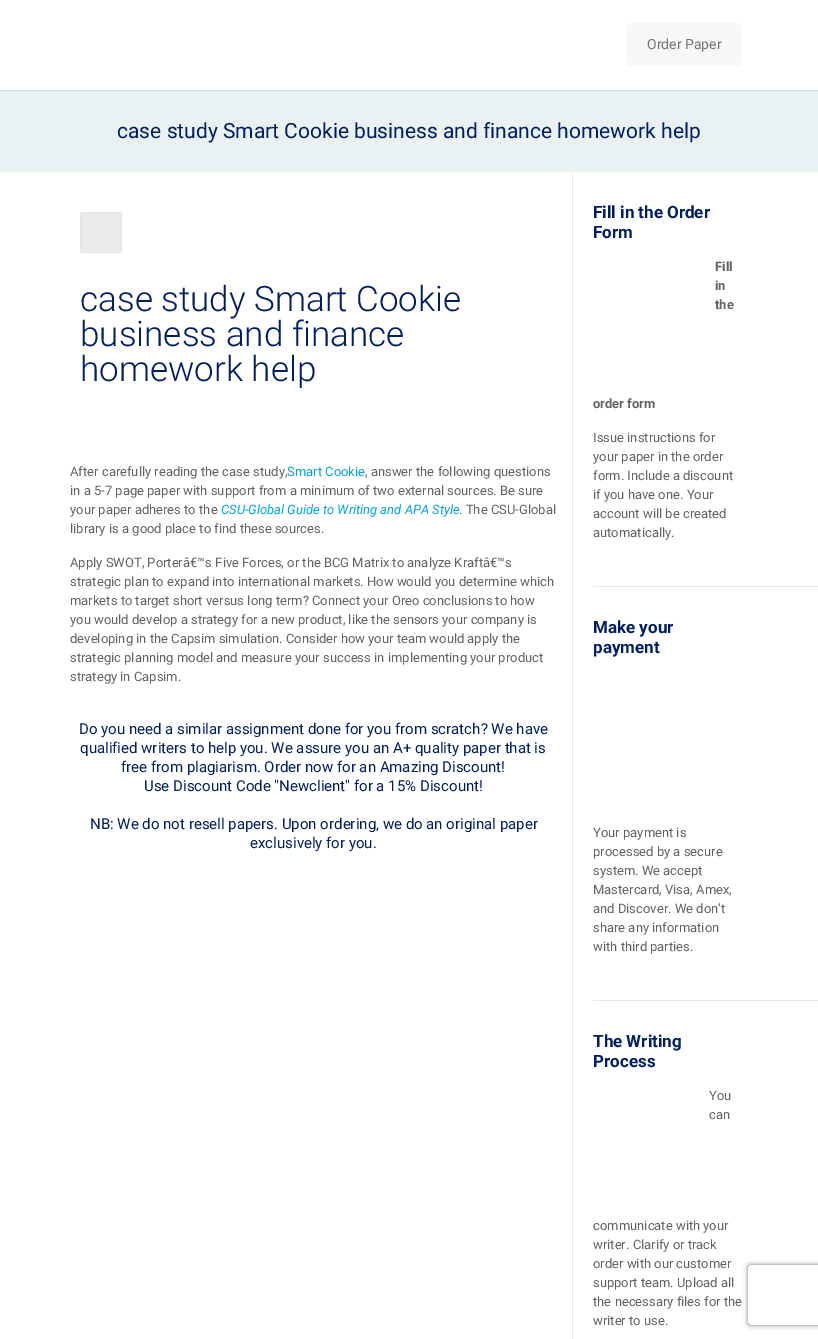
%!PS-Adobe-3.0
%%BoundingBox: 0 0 818 1339
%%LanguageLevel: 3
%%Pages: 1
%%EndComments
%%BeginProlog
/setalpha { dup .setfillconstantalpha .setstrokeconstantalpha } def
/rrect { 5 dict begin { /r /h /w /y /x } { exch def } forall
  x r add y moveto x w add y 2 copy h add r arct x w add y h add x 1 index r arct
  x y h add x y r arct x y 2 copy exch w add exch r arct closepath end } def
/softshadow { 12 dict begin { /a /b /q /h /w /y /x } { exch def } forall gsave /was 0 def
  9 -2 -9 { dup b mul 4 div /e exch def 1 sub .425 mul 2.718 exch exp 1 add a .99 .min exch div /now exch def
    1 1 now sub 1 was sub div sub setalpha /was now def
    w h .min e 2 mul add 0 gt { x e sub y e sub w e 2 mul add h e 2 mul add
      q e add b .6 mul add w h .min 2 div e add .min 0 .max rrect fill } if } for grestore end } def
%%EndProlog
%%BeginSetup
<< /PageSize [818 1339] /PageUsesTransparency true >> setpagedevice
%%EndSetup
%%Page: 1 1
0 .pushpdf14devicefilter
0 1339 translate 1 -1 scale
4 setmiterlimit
1 setgray
0 0 818 1339 rectfill
0.765 0.847 0.878 setrgbcolor
0 90 818 1 rectfill
0.969 setgray
627 23 114 43 5 rrect fill
0.918 0.945 0.949 setrgbcolor
0 91 818 81 rectfill
0.969 setgray
80 212 42 41 5 rrect fill
0.03 setalpha
0 setgray
80.5 212.5 41 40 rectstroke
0.05 setalpha
80 212 42 41 rectfill
1 setalpha
0.922 setgray
572 172 1 1167 rectfill
0.914 setgray
593 586 225 1 rectfill
593 1000 225 1 rectfill
gsave
newpath 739 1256 moveto 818 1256 lineto 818 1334 lineto 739 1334 lineto closepath 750 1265 moveto 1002 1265 lineto 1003 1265 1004 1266 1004 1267 curveto 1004 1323 lineto 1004 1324 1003 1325 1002 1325 curveto 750 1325 lineto 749 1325 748 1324 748 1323 curveto 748 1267 lineto 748 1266 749 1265 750 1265 curveto closepath eoclip newpath
0.502 setgray
748 1265 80 60 2 2.5 1 softshadow
grestore
/Roboto-Regular [14 0 0 -14 0 0] selectfont
0.455 setgray
647 49 moveto (Order Paper) show
/Roboto-Regular [21 0 0 -21 0 0] selectfont
0 0.118 0.388 setrgbcolor
117 138 moveto (case study Smart Cookie business and finance homework help) show
/Roboto-Light [35 0 0 -35 0 0] selectfont
80 311 moveto (case study Smart Cookie) show
80 346 moveto (business and finance) show
80 381 moveto (homework help) show
/Roboto-Regular [13 0 0 -13 0 0] selectfont
0.384 setgray
70 476 moveto (After carefully reading the case study,) show
0 0.643 0.89 setrgbcolor
287 476 moveto (Smart Cookie) show
0.384 setgray
365 476 moveto (, answer the following questions) show
70 495 moveto (in a 5-7 page paper with support from a minimum of two external sources. Be sure) show
70 514 moveto (your paper adheres to the) show
/Roboto-Italic [13 0 0 -13 0 0] selectfont
0 0.643 0.89 setrgbcolor
221 514 moveto (CSU-Global Guide to Writing and APA Style) show
/Roboto-Regular [13 0 0 -13 0 0] selectfont
0.384 setgray
459 514 moveto (. The CSU-Global) show
70 533 moveto (library is a good place to find these sources.) show
70 567 moveto (Apply SWOT, Porterâ€™s Five Forces, or the BCG Matrix to analyze Kraftâ€™s) show
70 586 moveto (strategic plan to expand into international markets. How would you determine which) show
70 605 moveto (markets to target short versus long term? Connect your Oreo conclusions to how) show
70 624 moveto (you would develop a strategy for a new product, like the sensors your company is) show
70 643 moveto (developing in the Capsim simulation. Consider how your team would apply the) show
70 662 moveto (strategic planning model and measure your success in implementing your product) show
70 681 moveto (strategy in Capsim.) show
/Roboto-Regular [15 0 0 -15 0 0] selectfont
0 0.118 0.388 setrgbcolor
79 734 moveto (Do you need a similar assignment done for you from scratch? We have) show
80 753 moveto (qualified writers to help you. We assure you an A+ quality paper that is) show
121 772 moveto (free from plagiarism. Order now for an Amazing Discount!) show
144 791 moveto (Use Discount Code "Newclient" for a 15% Discount!) show
90 829 moveto (NB: We do not resell papers. Upon ordering, we do an original paper) show
250 848 moveto (exclusively for you.) show
/Roboto-Bold [17 0 0 -17 0 0] selectfont
593 218 moveto (Fill in the Order) show
593 238 moveto (Form) show
/Roboto-Bold [13 0 0 -13 0 0] selectfont
0.384 setgray
715 271 moveto (Fill) show
715 290 moveto (in) show
715 309 moveto (the) show
593 408 moveto (order form) show
/Roboto-Regular [13 0 0 -13 0 0] selectfont
593 442 moveto (Issue instructions for) show
593 461 moveto (your paper in the order) show
593 480 moveto (form. Include a discount) show
593 499 moveto (if you have one. Your) show
593 518 moveto (account will be created) show
593 537 moveto (automatically.) show
/Roboto-Bold [17 0 0 -17 0 0] selectfont
0 0.118 0.388 setrgbcolor
593 633 moveto (Make your) show
593 653 moveto (payment) show
/Roboto-Regular [13 0 0 -13 0 0] selectfont
0.384 setgray
593 837 moveto (Your payment is) show
593 856 moveto (processed by a secure) show
593 875 moveto (system. We accept) show
593 894 moveto (Mastercard, Visa, Amex,) show
593 913 moveto (and Discover. We don’t) show
593 932 moveto (share any information) show
593 951 moveto (with third parties.) show
/Roboto-Bold [17 0 0 -17 0 0] selectfont
0 0.118 0.388 setrgbcolor
593 1047 moveto (The Writing) show
593 1067 moveto (Process) show
/Roboto-Regular [13 0 0 -13 0 0] selectfont
0.384 setgray
709 1100 moveto (You) show
709 1119 moveto (can) show
593 1230 moveto (communicate with your) show
593 1249 moveto (writer. Clarify or track) show
593 1268 moveto (order with our customer) show
593 1287 moveto (support team. Upload all) show
593 1306 moveto (the necessary files for the) show
593 1325 moveto (writer to use.) show
.poppdf14devicefilter showpage
%%EOF
